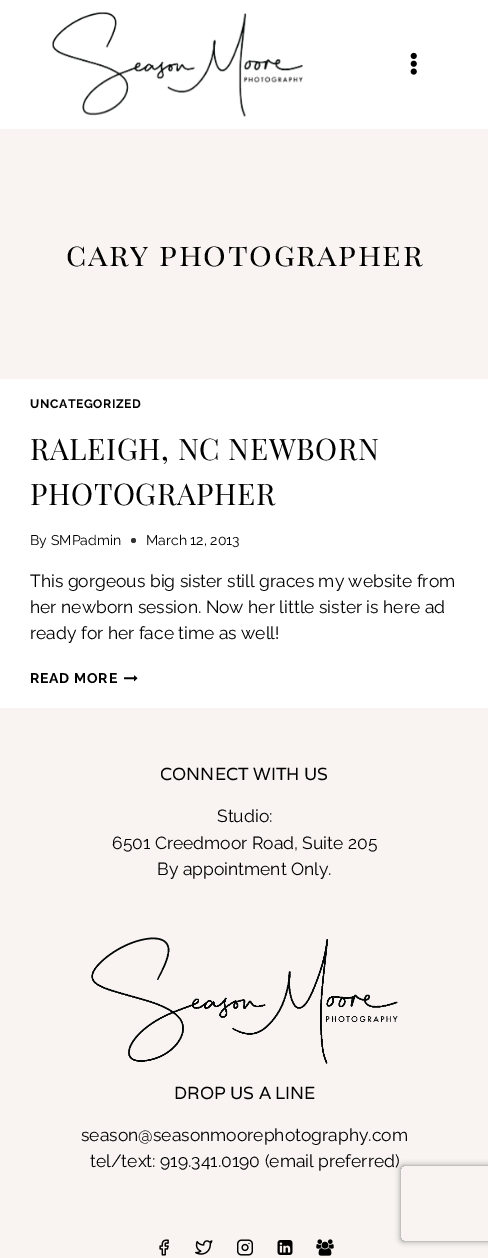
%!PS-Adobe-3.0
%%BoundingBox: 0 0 488 1258
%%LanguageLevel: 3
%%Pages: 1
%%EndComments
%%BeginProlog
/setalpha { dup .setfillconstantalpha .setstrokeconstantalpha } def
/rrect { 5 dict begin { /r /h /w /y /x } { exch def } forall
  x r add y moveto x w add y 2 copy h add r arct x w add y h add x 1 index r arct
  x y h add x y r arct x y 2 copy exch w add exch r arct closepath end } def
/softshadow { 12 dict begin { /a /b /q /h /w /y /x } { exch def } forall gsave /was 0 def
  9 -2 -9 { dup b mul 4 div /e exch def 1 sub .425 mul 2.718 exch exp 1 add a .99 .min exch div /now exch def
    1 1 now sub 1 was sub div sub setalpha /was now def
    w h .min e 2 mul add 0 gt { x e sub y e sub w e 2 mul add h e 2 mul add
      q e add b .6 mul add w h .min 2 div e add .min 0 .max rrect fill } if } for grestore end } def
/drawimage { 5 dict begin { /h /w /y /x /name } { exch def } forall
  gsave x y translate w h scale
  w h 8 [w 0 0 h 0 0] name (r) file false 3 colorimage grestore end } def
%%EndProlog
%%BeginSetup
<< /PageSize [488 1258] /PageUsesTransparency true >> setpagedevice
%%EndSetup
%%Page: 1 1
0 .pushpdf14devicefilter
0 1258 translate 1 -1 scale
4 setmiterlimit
1 setgray
0 0 488 1258 rectfill
(images/1.raw) 52 12 251 105 drawimage
(images/2.raw) 410 52 7 23 drawimage
0.976 0.957 0.945 setrgbcolor
0 129 488 250 rectfill
0.2 setgray
newpath 133.5 540.5 2.5 0 360 arc closepath fill
(images/3.raw) 124 675 14 7 drawimage
0.976 0.957 0.945 setrgbcolor
0 708 488 550 rectfill
(images/4.raw) 91 937 307 127 drawimage
(images/5.raw) 159 1239 10 17 drawimage
(images/6.raw) 195 1240 18 15 drawimage
(images/7.raw) 237 1239 16 17 drawimage
(images/8.raw) 277 1240 16 15 drawimage
(images/9.raw) 316 1239 18 17 drawimage
gsave
newpath 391 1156 moveto 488 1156 lineto 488 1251 lineto 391 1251 lineto closepath 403.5 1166 moveto 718.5 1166 lineto 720 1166 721 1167 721 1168.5 curveto 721 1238.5 lineto 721 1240 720 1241 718.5 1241 curveto 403.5 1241 lineto 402 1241 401 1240 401 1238.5 curveto 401 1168.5 lineto 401 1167 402 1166 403.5 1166 curveto closepath eoclip newpath
0.502 setgray
401 1166 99 75 2.5 3 1 softshadow
grestore
/PlayfairDisplaySC-Regular [31.5 0 0 -31.5 0 0] selectfont
0 setgray
66 266 moveto 1.6 0 (cary photographer) ashow
/Raleway-Bold [12.25 0 0 -12.25 0 0] selectfont
30 408 moveto 0.6 0 (UNCATEGORIZED) ashow
/PlayfairDisplay-Regular [29.75 0 0 -29.75 0 0] selectfont
30 460 moveto 0.6 0 (RALEIGH, NC NEWBORN) ashow
30 505 moveto 0.6 0 (PHOTOGRAPHER) ashow
/Raleway-Regular [14 0 0 -14 0 0] selectfont
30 545 moveto (By) show
51 545 moveto (SMPadmin) show
146 545 moveto (March 12, 2013) show
/Raleway-Regular [17.5 0 0 -17.5 0 0] selectfont
30 587 moveto (This gorgeous big sister still graces my website from) show
30 613 moveto (her newborn session. Now her little sister is here ad) show
30 639 moveto (ready for her face time as well!) show
/Raleway-Bold [14 0 0 -14 0 0] selectfont
30 683 moveto 0.75 0 (READ MORE) ashow
/Varela-Regular [17.5 0 0 -17.5 0 0] selectfont
160 780 moveto (CONNECT WITH US) show
/Raleway-Regular [17.5 0 0 -17.5 0 0] selectfont
217 822 moveto (Studio:) show
112 849 moveto (6501 Creedmoor Road, Suite 205) show
157 875 moveto (By appointment Only.) show
/Varela-Regular [17.5 0 0 -17.5 0 0] selectfont
174 1099 moveto (DROP US A LINE) show
/Raleway-Regular [17.5 0 0 -17.5 0 0] selectfont
81 1141 moveto (season@seasonmoorephotography.com) show
90 1167 moveto (tel/text: 919.341.0190 \(email preferred\)) show
.poppdf14devicefilter showpage
%%EOF
